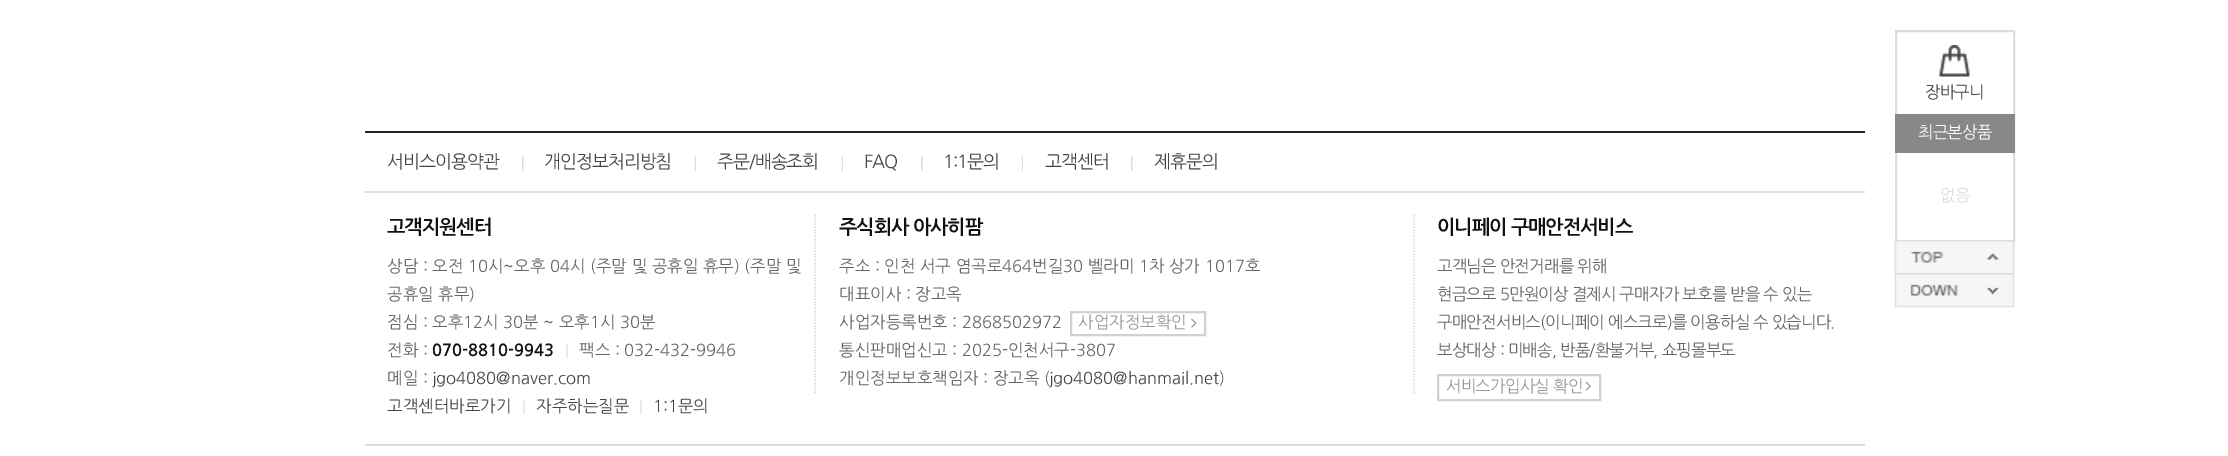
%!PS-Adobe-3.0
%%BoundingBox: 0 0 2228 456
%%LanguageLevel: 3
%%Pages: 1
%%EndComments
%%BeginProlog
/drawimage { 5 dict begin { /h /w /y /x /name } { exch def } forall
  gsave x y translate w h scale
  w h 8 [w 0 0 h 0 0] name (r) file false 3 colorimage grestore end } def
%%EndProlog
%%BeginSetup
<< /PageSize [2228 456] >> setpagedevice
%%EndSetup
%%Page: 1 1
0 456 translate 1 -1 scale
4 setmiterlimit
1 setgray
0 0 2228 456 rectfill
0.133 setgray
365 131 1500 2 rectfill
0.867 setgray
365 191 1500 2 rectfill
(images/1.raw) 522 156 2 15 drawimage
(images/2.raw) 694 156 2 15 drawimage
(images/2.raw) 841 156 2 15 drawimage
(images/1.raw) 921 156 2 15 drawimage
(images/2.raw) 1021 156 2 15 drawimage
(images/1.raw) 1131 156 2 15 drawimage
365 444 1500 2 rectfill
1.5 setlinewidth
[1.5 1.5] 0 setdash
newpath 1414 214.5 moveto 1414 394.5 lineto stroke
newpath 815 214.5 moveto 815 394.5 lineto stroke
0.82 setgray
2 setlinewidth
[] 0 setdash
1071 312 134 23 rectstroke
(images/3.raw) 1191 318 6 10 drawimage
1438 375 162 25 rectstroke
(images/4.raw) 1585 381 6 10 drawimage
0.867 setgray
1896 31 118 210 rectstroke
(images/5.raw) 1939 45 31 32 drawimage
0.533 setgray
1895 114 120 39 rectfill
(images/6.raw) 1894 240 121 33 drawimage
(images/7.raw) 1894 273 121 35 drawimage
/NanumGothic-Regular [18 0 0 -18 0 0] selectfont
0.271 setgray
387 168 moveto -1 0 (서비스이용약관) ashow
544 168 moveto -1 0 (개인정보처리방침) ashow
717 168 moveto -1 0 (주문/배송조회) ashow
864 168 moveto -1 0 (FAQ) ashow
943 168 moveto -1 0 (1:1문의) ashow
1045 168 moveto -1 0 (고객센터) ashow
1154 168 moveto -1 0 (제휴문의) ashow
/NanumGothic-Bold [19.5 0 0 -19.5 0 0] selectfont
0.067 setgray
387 234 moveto -1 0 (고객지원센터) ashow
/NanumGothic-Regular [16.5 0 0 -16.5 0 0] selectfont
0.4 setgray
387 272 moveto (상담 : 오전 10시~오후 04시 \(주말 및 공휴일 휴무\) \(주말 및) show
387 300 moveto (공휴일 휴무\)) show
387 328 moveto (점심 : 오후12시 30분 ~ 오후1시 30분) show
387 356 moveto (전화 :) show
/NanumGothic-Bold [16.5 0 0 -16.5 0 0] selectfont
0.067 setgray
432 356 moveto (070-8810-9943) show
/NanumGothic-Regular [15 0 0 -15 0 0] selectfont
0.843 setgray
565 356 moveto (|) show
/NanumGothic-Regular [16.5 0 0 -16.5 0 0] selectfont
0.4 setgray
579 356 moveto (팩스 : 032-432-9946) show
387 384 moveto (메일 :) show
0.271 setgray
432 384 moveto (jgo4080@naver.com) show
387 412 moveto (고객센터바로가기) show
/NanumGothic-Regular [15 0 0 -15 0 0] selectfont
0.843 setgray
522 412 moveto (|) show
/NanumGothic-Regular [16.5 0 0 -16.5 0 0] selectfont
0.271 setgray
536 412 moveto (자주하는질문) show
/NanumGothic-Regular [15 0 0 -15 0 0] selectfont
0.843 setgray
639 412 moveto (|) show
/NanumGothic-Regular [16.5 0 0 -16.5 0 0] selectfont
0.271 setgray
653 412 moveto (1:1문의) show
/NanumGothic-Bold [19.5 0 0 -19.5 0 0] selectfont
0.067 setgray
839 234 moveto -1 0 (주식회사 아사히팜) ashow
/NanumGothic-Regular [16.5 0 0 -16.5 0 0] selectfont
0.4 setgray
839 272 moveto (주소 : 인천 서구 염곡로464번길30 벨라미 1차 상가 1017호) show
839 300 moveto (대표이사 : 장고옥) show
839 328 moveto (사업자등록번호 : 2868502972) show
0.6 setgray
1078 328 moveto (사업자정보확인) show
0.4 setgray
839 356 moveto (통신판매업신고 : 2025-인천서구-3807) show
839 384 moveto (개인정보보호책임자 : 장고옥 \() show
0.271 setgray
1049 384 moveto (jgo4080@hanmail.net) show
0.4 setgray
1219 384 moveto (\)) show
/NanumGothic-Bold [19.5 0 0 -19.5 0 0] selectfont
0.067 setgray
1437 234 moveto -1 0 (이니페이 구매안전서비스) ashow
/NanumGothic-Regular [16.5 0 0 -16.5 0 0] selectfont
0.4 setgray
1437 272 moveto -0.8 0 (고객님은 안전거래를 위해) ashow
1437 300 moveto -0.8 0 (현금으로 5만원이상 결제시 구매자가 보호를 받을 수 있는) ashow
1437 328 moveto -0.8 0 (구매안전서비스\(이니페이 에스크로\)를 이용하실 수 있습니다.) ashow
1437 356 moveto -0.8 0 (보상대상 : 미배송, 반품/환불거부, 쇼핑몰부도) ashow
0.6 setgray
1446 392 moveto -0.8 0 (서비스가입사실 확인) ashow
0.271 setgray
1925 98 moveto -0.8 0 (장바구니) ashow
1 setgray
1918 138 moveto -0.8 0 (최근본상품) ashow
0.867 setgray
1940 201 moveto -0.8 0 (없음) ashow
showpage
%%EOF
